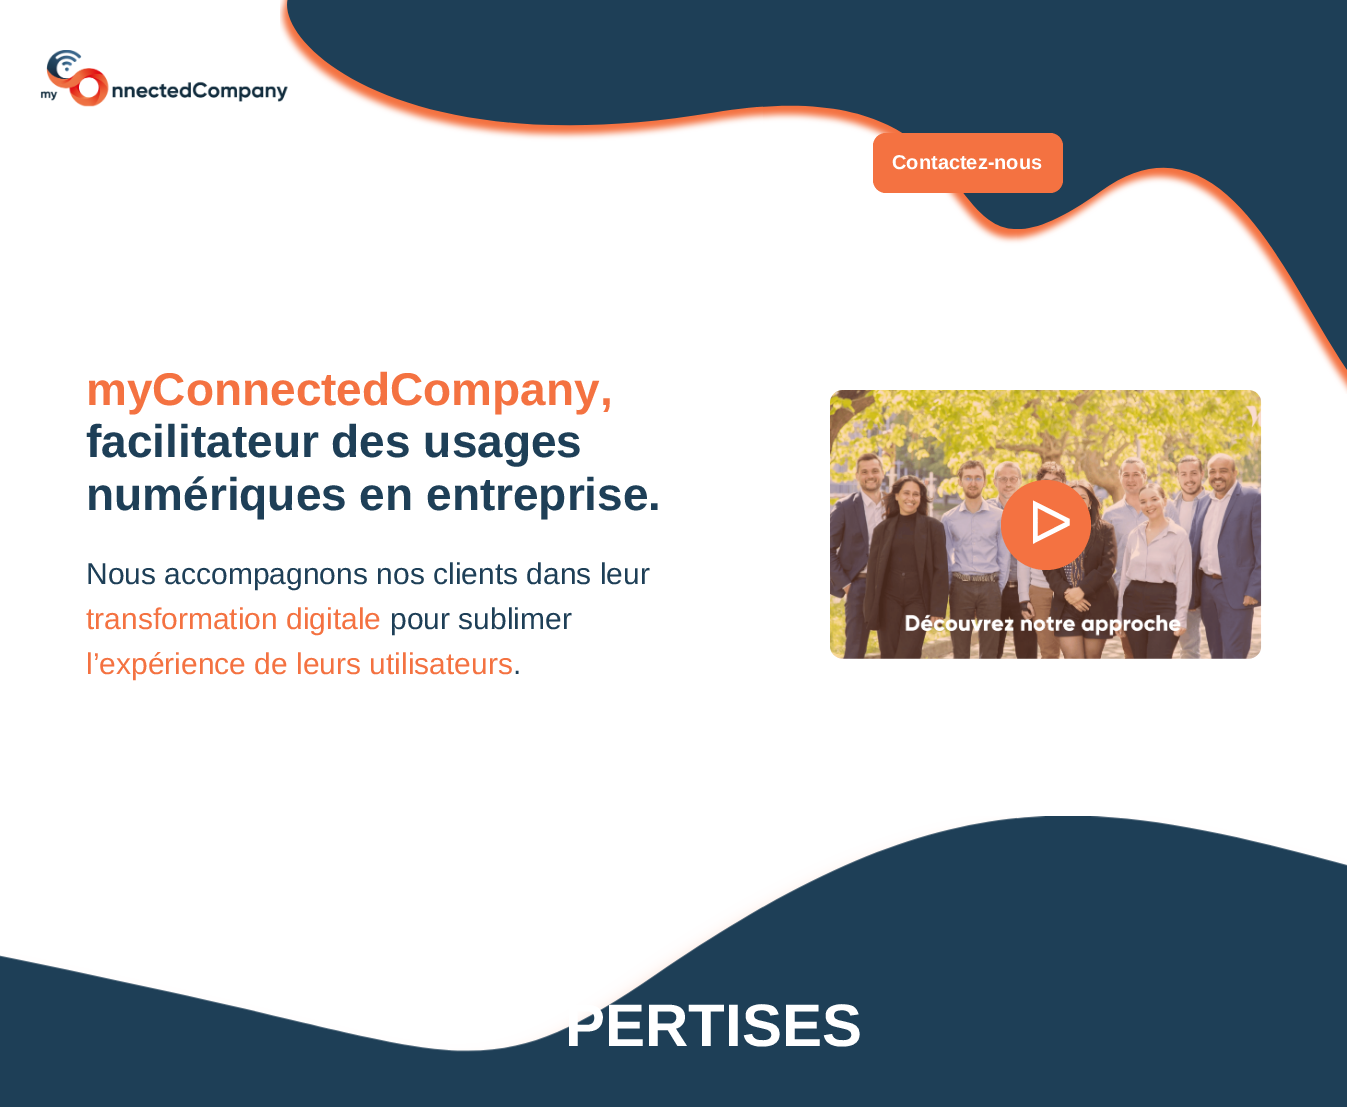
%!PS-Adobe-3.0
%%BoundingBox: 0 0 1347 1107
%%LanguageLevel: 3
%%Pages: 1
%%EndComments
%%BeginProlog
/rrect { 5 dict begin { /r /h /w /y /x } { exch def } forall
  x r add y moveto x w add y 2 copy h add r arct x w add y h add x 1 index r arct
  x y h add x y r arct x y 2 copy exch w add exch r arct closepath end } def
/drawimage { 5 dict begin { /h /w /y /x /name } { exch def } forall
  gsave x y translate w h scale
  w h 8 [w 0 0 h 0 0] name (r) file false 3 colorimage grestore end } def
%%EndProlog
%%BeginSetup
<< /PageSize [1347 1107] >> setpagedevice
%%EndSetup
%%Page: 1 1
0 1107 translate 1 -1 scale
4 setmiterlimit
1 setgray
0 0 1347 1107 rectfill
(images/1.raw) 280 0 1067 394 drawimage
(images/2.raw) 40 50 248 57 drawimage
0.957 0.447 0.255 setrgbcolor
873 133 190 60 13 rrect fill
(images/3.raw) 830 390 432 269 drawimage
newpath 1046 525 45 0 360 arc closepath fill
(images/4.raw) 0 816 1347 291 drawimage
/LiberationSans-Bold [20 0 0 -20 0 0] selectfont
1 setgray
892 169 moveto (Contactez-nous) show
/LiberationSans-Bold [46 0 0 -46 0 0] selectfont
0.957 0.447 0.255 setrgbcolor
86 405 moveto (myConnectedCompany,) show
0.118 0.247 0.341 setrgbcolor
86 457 moveto (facilitateur des usages) show
86 510 moveto (numériques en entreprise.) show
/LiberationSans-Regular [30 0 0 -30 0 0] selectfont
86 584 moveto (Nous accompagnons nos clients dans leur) show
0.957 0.447 0.255 setrgbcolor
86 629 moveto (transformation digitale) show
0.118 0.247 0.341 setrgbcolor
390 629 moveto (pour sublimer) show
0.957 0.447 0.255 setrgbcolor
86 674 moveto (l’expérience de leurs utilisateurs) show
0.118 0.247 0.341 setrgbcolor
513 674 moveto (.) show
/DejaVuSans-Regular [60 0 0 -60 0 0] selectfont
1 setgray
1027 544 moveto (ᐅ) show
/LiberationSans-Bold [60 0 0 -60 0 0] selectfont
565 1046 moveto (PERTISES) show
showpage
%%EOF
